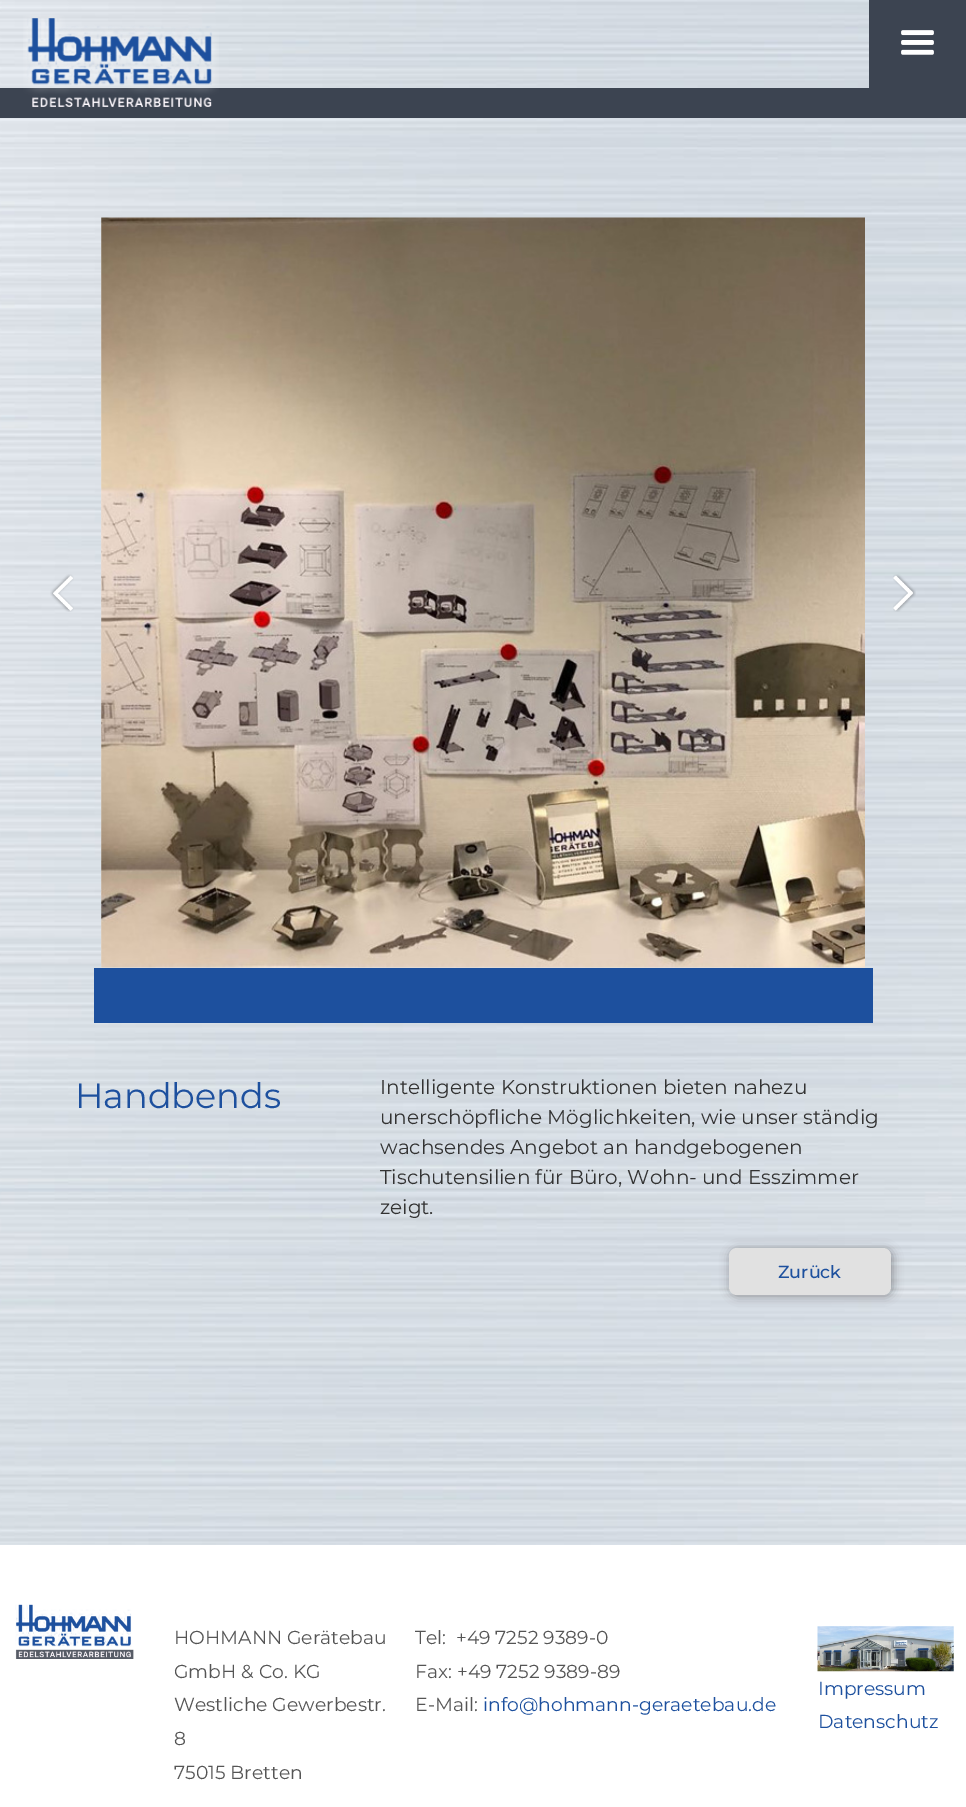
%!PS-Adobe-3.0
%%BoundingBox: 0 0 966 1807
%%LanguageLevel: 3
%%Pages: 1
%%EndComments
%%BeginProlog
/setalpha { dup .setfillconstantalpha .setstrokeconstantalpha } def
/rrect { 5 dict begin { /r /h /w /y /x } { exch def } forall
  x r add y moveto x w add y 2 copy h add r arct x w add y h add x 1 index r arct
  x y h add x y r arct x y 2 copy exch w add exch r arct closepath end } def
/softshadow { 12 dict begin { /a /b /q /h /w /y /x } { exch def } forall gsave /was 0 def
  9 -2 -9 { dup b mul 4 div /e exch def 1 sub .425 mul 2.718 exch exp 1 add a .99 .min exch div /now exch def
    1 1 now sub 1 was sub div sub setalpha /was now def
    w h .min e 2 mul add 0 gt { x e sub y e sub w e 2 mul add h e 2 mul add
      q e add b .6 mul add w h .min 2 div e add .min 0 .max rrect fill } if } for grestore end } def
/drawimage { 5 dict begin { /h /w /y /x /name } { exch def } forall
  gsave x y translate w h scale
  w h 8 [w 0 0 h 0 0] name (r) file false 3 colorimage grestore end } def
%%EndProlog
%%BeginSetup
<< /PageSize [966 1807] /PageUsesTransparency true >> setpagedevice
%%EndSetup
%%Page: 1 1
0 .pushpdf14devicefilter
0 1807 translate 1 -1 scale
4 setmiterlimit
1 setgray
0 0 966 1807 rectfill
(images/1.raw) 0 0 966 1545 drawimage
0.235 0.267 0.318 setrgbcolor
0 88 966 30 rectfill
(images/2.raw) 23 15 196 92 drawimage
869 0 97 88 rectfill
(images/3.raw) 901 30 33 25 drawimage
(images/4.raw) 50 574 24 38 drawimage
0.902 setgray
101 218 764 750 rectfill
(images/5.raw) 101 217 764 751 drawimage
(images/6.raw) 893 574 23 38 drawimage
0.114 0.314 0.62 setrgbcolor
94 968 779 55 rectfill
0 setgray
730 1249 163 47 8 5 0.33 softshadow
0.882 setgray
729 1248 162 47 8 rrect fill
(images/7.raw) 15 1604 119 55 drawimage
(images/8.raw) 817 1626 137 46 drawimage
/Montserrat-Regular [35 0 0 -35 0 0] selectfont
0.114 0.314 0.62 setrgbcolor
75 1108 moveto (Handbends) show
/Montserrat-Regular [20 0 0 -20 0 0] selectfont
0.2 setgray
380 1094 moveto (Intelligente Konstruktionen bieten nahezu) show
380 1124 moveto (unerschöpfliche Möglichkeiten, wie unser ständig) show
380 1154 moveto (wachsendes Angebot an handgebogenen) show
380 1184 moveto (Tischutensilien für Büro, Wohn- und Esszimmer) show
380 1214 moveto (zeigt.) show
/Montserrat-Medium [17.5 0 0 -17.5 0 0] selectfont
0.114 0.314 0.62 setrgbcolor
778 1278 moveto (Zurück) show
/Montserrat-Regular [18.75 0 0 -18.75 0 0] selectfont
0.333 setgray
174 1644 moveto (HOHMANN Gerätebau) show
174 1678 moveto (GmbH & Co. KG) show
174 1711 moveto (Westliche Gewerbestr.) show
174 1745 moveto (8) show
174 1779 moveto (75015 Bretten) show
415 1644 moveto (Tel:  +49 7252 9389-0) show
415 1678 moveto (Fax: +49 7252 9389-89) show
415 1711 moveto (E-Mail:) show
0.114 0.314 0.62 setrgbcolor
483 1711 moveto (info@hohmann-geraetebau.de) show
818 1695 moveto (Impressum) show
818 1728 moveto (Datenschutz) show
.poppdf14devicefilter showpage
%%EOF
